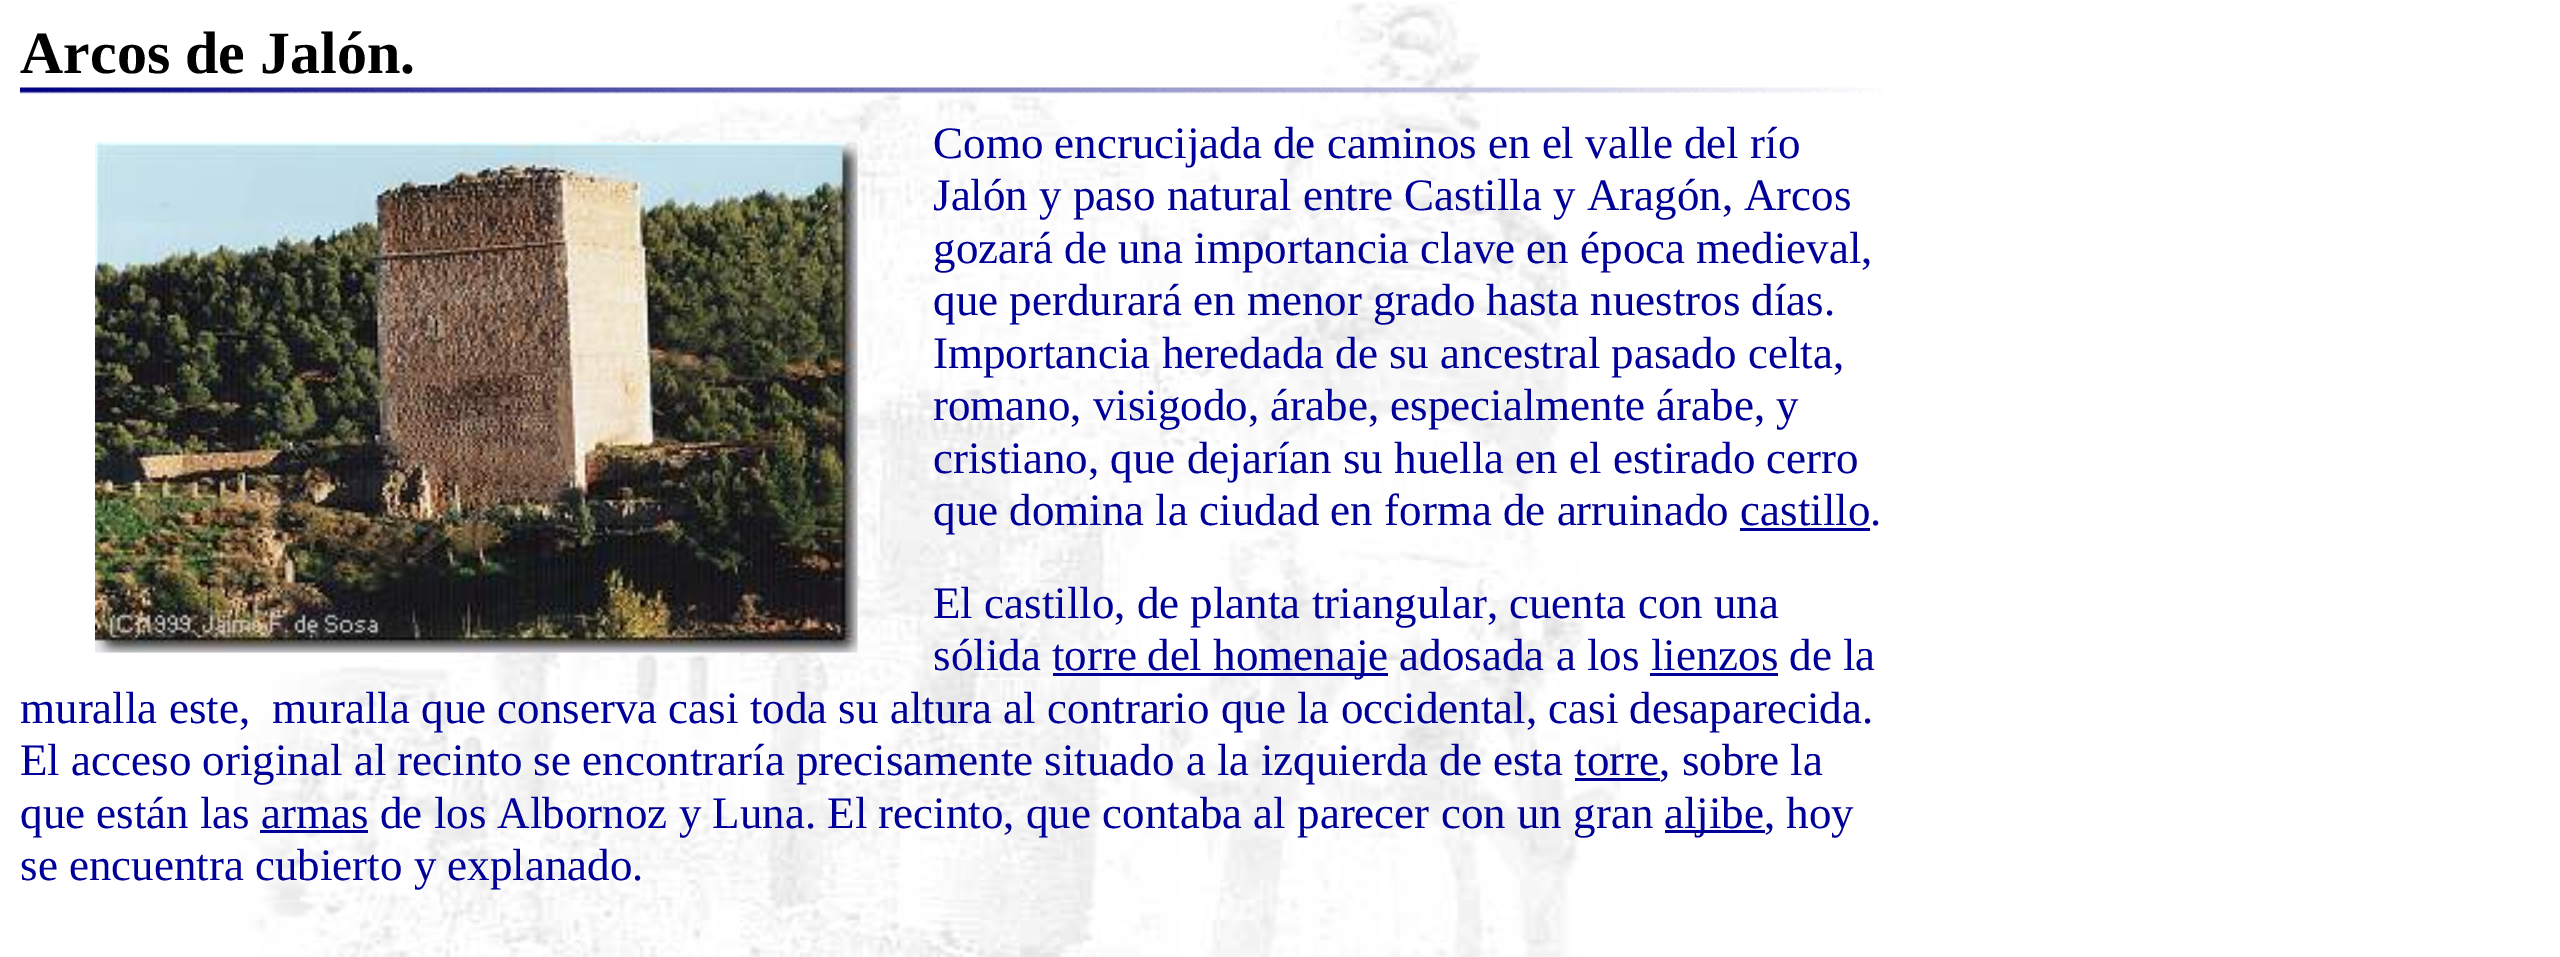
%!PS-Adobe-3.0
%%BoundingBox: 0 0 2560 957
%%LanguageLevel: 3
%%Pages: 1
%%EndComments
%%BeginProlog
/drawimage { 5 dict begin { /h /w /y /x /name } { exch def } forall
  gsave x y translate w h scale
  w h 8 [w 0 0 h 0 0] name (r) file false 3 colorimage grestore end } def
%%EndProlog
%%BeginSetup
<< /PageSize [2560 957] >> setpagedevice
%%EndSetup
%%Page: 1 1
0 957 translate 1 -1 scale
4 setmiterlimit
1 setgray
0 0 2560 957 rectfill
(images/1.raw) 235 1 1386 956 drawimage
(images/2.raw) 20 87 1863 7 drawimage
(images/3.raw) 95 142 763 511 drawimage
0 0 0.6 setrgbcolor
1740 528 130 3 rectfill
1053 673 335 3 rectfill
1650 673 128 3 rectfill
1575 778 85 3 rectfill
260 830 108 3 rectfill
1665 830 100 3 rectfill
/LiberationSerif-Bold [60 0 0 -60 0 0] selectfont
0 setgray
20 73 moveto (Arcos de Jalón.) show
/LiberationSerif-Regular [45 0 0 -45 0 0] selectfont
0 0 0.6 setrgbcolor
933 158 moveto (Como encrucijada de caminos en el valle del río) show
933 210 moveto (Jalón y paso natural entre Castilla y Aragón, Arcos) show
933 263 moveto (gozará de una importancia clave en época medieval,) show
933 315 moveto (que perdurará en menor grado hasta nuestros días.) show
933 368 moveto (Importancia heredada de su ancestral pasado celta,) show
933 420 moveto (romano, visigodo, árabe, especialmente árabe, y) show
933 473 moveto (cristiano, que dejarían su huella en el estirado cerro) show
933 525 moveto (que domina la ciudad en forma de arruinado castillo.) show
933 618 moveto (El castillo, de planta triangular, cuenta con una) show
933 670 moveto (sólida torre) show
1147 670 moveto (del homenaje adosada a los lienzos de la) show
20 723 moveto (muralla este,  muralla que conserva casi toda su altura al contrario que la occidental, casi desaparecida.) show
20 775 moveto (El acceso original al recinto se encontraría precisamente situado a la izquierda de esta torre, sobre la) show
20 828 moveto (que están las armas de los Albornoz y Luna. El recinto, que contaba al parecer con un gran) show
1664 828 moveto (aljibe, hoy) show
20 880 moveto (se encuentra cubierto y explanado.) show
showpage
%%EOF
